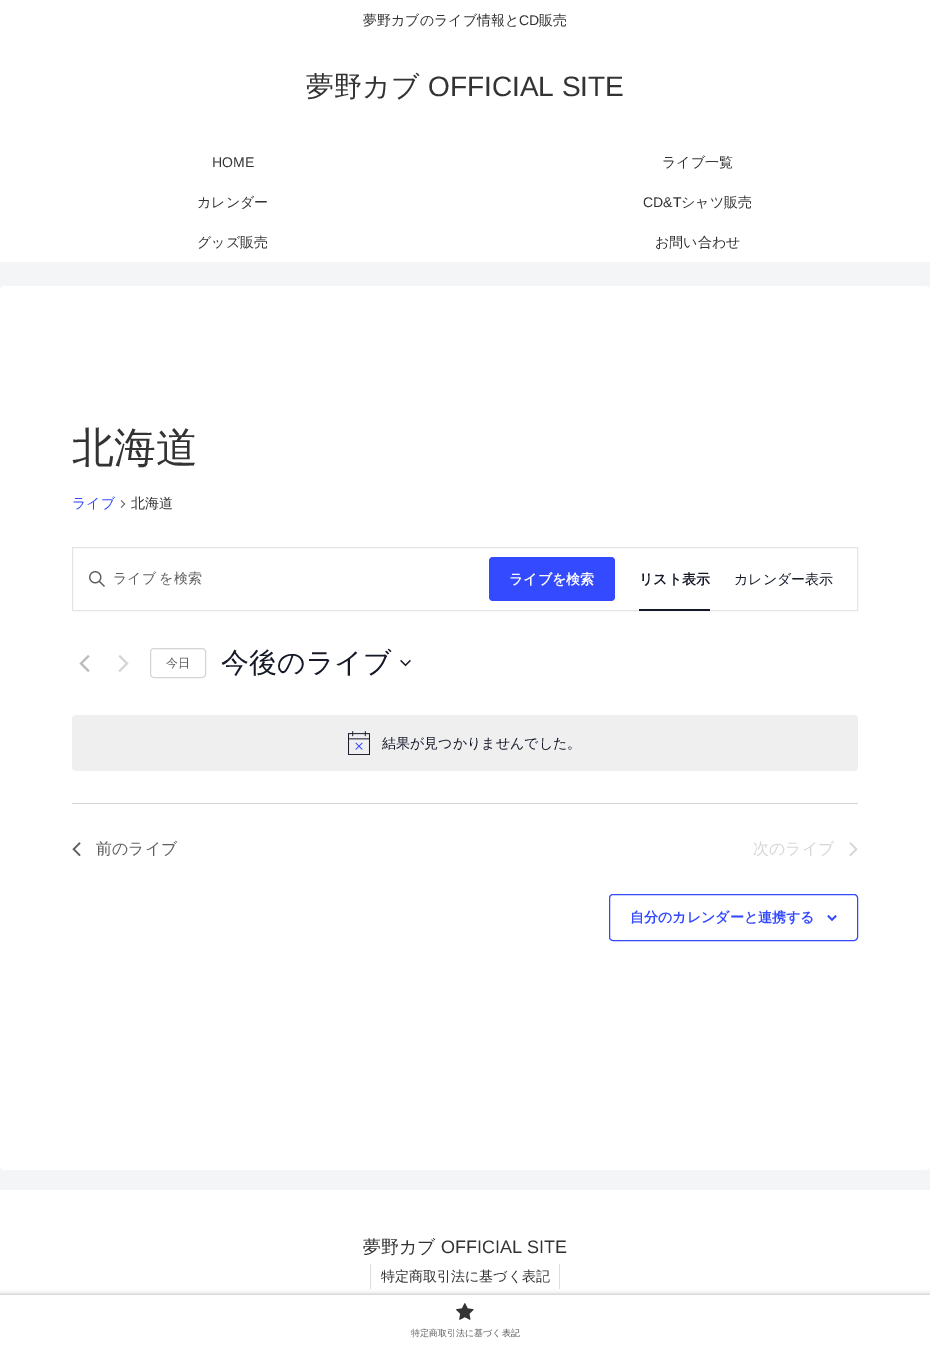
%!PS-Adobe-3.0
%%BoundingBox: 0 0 930 1345
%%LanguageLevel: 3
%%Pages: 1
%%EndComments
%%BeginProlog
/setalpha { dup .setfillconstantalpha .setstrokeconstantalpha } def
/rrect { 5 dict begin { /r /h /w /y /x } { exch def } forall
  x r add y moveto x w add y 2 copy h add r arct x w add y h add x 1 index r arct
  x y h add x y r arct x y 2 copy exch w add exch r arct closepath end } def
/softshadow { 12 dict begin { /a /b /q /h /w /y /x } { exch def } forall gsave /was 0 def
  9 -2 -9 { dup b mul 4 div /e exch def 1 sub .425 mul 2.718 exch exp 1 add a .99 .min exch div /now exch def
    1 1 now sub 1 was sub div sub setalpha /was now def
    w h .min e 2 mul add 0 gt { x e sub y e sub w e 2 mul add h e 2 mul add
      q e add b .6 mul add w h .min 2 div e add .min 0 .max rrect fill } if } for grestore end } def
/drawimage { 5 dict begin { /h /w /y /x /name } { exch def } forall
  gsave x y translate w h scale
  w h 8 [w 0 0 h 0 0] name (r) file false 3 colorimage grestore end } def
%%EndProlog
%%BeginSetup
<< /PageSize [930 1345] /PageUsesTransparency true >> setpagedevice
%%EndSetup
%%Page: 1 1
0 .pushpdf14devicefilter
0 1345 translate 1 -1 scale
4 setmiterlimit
0.957 0.961 0.969 setrgbcolor
0 0 930 1345 rectfill
1 setgray
0 0 930 262 rectfill
0 286 930 884 4 rrect fill
(images/1.raw) 120 500 6 8 drawimage
0.894 setgray
72.5 547.5 785 63 rectstroke
(images/2.raw) 89 571 16 16 drawimage
0.2 0.29 1 setrgbcolor
489 557 126 44 4 rrect fill
0.078 0.094 0.153 setrgbcolor
639 609 71 2 rectfill
(images/3.raw) 79 655 11 17 drawimage
(images/4.raw) 118 655 11 17 drawimage
0.835 setgray
150.5 648.5 55 29 3.5 rrect stroke
(images/5.raw) 400 659 11 8 drawimage
0.937 0.937 0.941 setrgbcolor
72 715 786 56 4 rrect fill
(images/6.raw) 348 731 22 24 drawimage
0.835 setgray
72 803 786 1 rectfill
(images/7.raw) 72 842 9 14 drawimage
(images/8.raw) 849 842 9 14 drawimage
0.2 0.29 1 setrgbcolor
609.5 894.5 248 46 3.5 rrect stroke
(images/9.raw) 827 915 10 6 drawimage
1 setgray
0 1190 930 105 rectfill
0.867 setgray
559 1264 1 25 rectfill
370 1264 1 25 rectfill
0.663 setgray
0 1295 930 50 0 2.5 1 softshadow
1 setgray
0 1295 930 50 rectfill
(images/10.raw) 456 1303 18 17 drawimage
/WenQuanYiZenHei-Medium [14 0 0 -14 0 0] selectfont
0.2 setgray
363 25 moveto (夢野カブのライブ情報と) show
/LiberationSans-Regular [14 0 0 -14 0 0] selectfont
519 25 moveto (CD) show
/WenQuanYiZenHei-Medium [14 0 0 -14 0 0] selectfont
539 25 moveto (販売) show
/WenQuanYiZenHei-Medium [28 0 0 -28 0 0] selectfont
306 96 moveto (夢野カブ) show
/LiberationSans-Regular [28 0 0 -28 0 0] selectfont
428 96 moveto (OFFICIAL SITE) show
/LiberationSans-Regular [14 0 0 -14 0 0] selectfont
212 167 moveto (HOME) show
/WenQuanYiZenHei-Medium [14 0 0 -14 0 0] selectfont
662 167 moveto (ライブ一覧) show
197 207 moveto (カレンダー) show
/LiberationSans-Regular [14 0 0 -14 0 0] selectfont
643 207 moveto (CD&T) show
/WenQuanYiZenHei-Medium [14 0 0 -14 0 0] selectfont
681 207 moveto (シャツ販売) show
197 247 moveto (グッズ販売) show
655 247 moveto (お問い合わせ) show
/WenQuanYiZenHei-Medium [42 0 0 -42 0 0] selectfont
72 462 moveto (北海道) show
/WenQuanYiZenHei-Medium [14 0 0 -14 0 0] selectfont
0.2 0.29 1 setrgbcolor
72 508 moveto (ライブ) show
0.2 setgray
131 508 moveto (北海道) show
0.365 setgray
113 583 moveto -1 0 32 (ライブ を検索) widthshow
/WenQuanYiZenHei-Bold [14 0 0 -14 0 0] selectfont
1 setgray
509 584 moveto (ライブを検索) show
0.078 0.094 0.153 setrgbcolor
639 584 moveto (リスト表示) show
/WenQuanYiZenHei-Medium [14 0 0 -14 0 0] selectfont
734 584 moveto (カレンダー表示) show
/WenQuanYiZenHei-Medium [12 0 0 -12 0 0] selectfont
0.365 setgray
166 667 moveto (今日) show
/WenQuanYiZenHei-Medium [28 0 0 -28 0 0] selectfont
0.078 0.094 0.153 setrgbcolor
221 672 moveto (今後のライブ) show
/WenQuanYiZenHei-Medium [14 0 0 -14 0 0] selectfont
382 748 moveto (結果が見つかりませんでした。) show
/WenQuanYiZenHei-Medium [16 0 0 -16 0 0] selectfont
0.365 setgray
96 854 moveto (前のライブ) show
0.835 setgray
753 854 moveto (次のライブ) show
/WenQuanYiZenHei-Bold [14 0 0 -14 0 0] selectfont
0.2 0.29 1 setrgbcolor
630 922 moveto (自分のカレンダーと連携する) show
/WenQuanYiZenHei-Medium [18 0 0 -18 0 0] selectfont
0.2 setgray
363 1253 moveto (夢野カブ) show
/LiberationSans-Regular [18 0 0 -18 0 0] selectfont
441 1253 moveto (OFFICIAL SITE) show
/WenQuanYiZenHei-Medium [14 0 0 -14 0 0] selectfont
381 1281 moveto (特定商取引法に基づく表記) show
/WenQuanYiZenHei-Medium [9 0 0 -9 0 0] selectfont
0.365 setgray
411 1336 moveto (特定商取引法に基づく表記) show
.poppdf14devicefilter showpage
%%EOF
